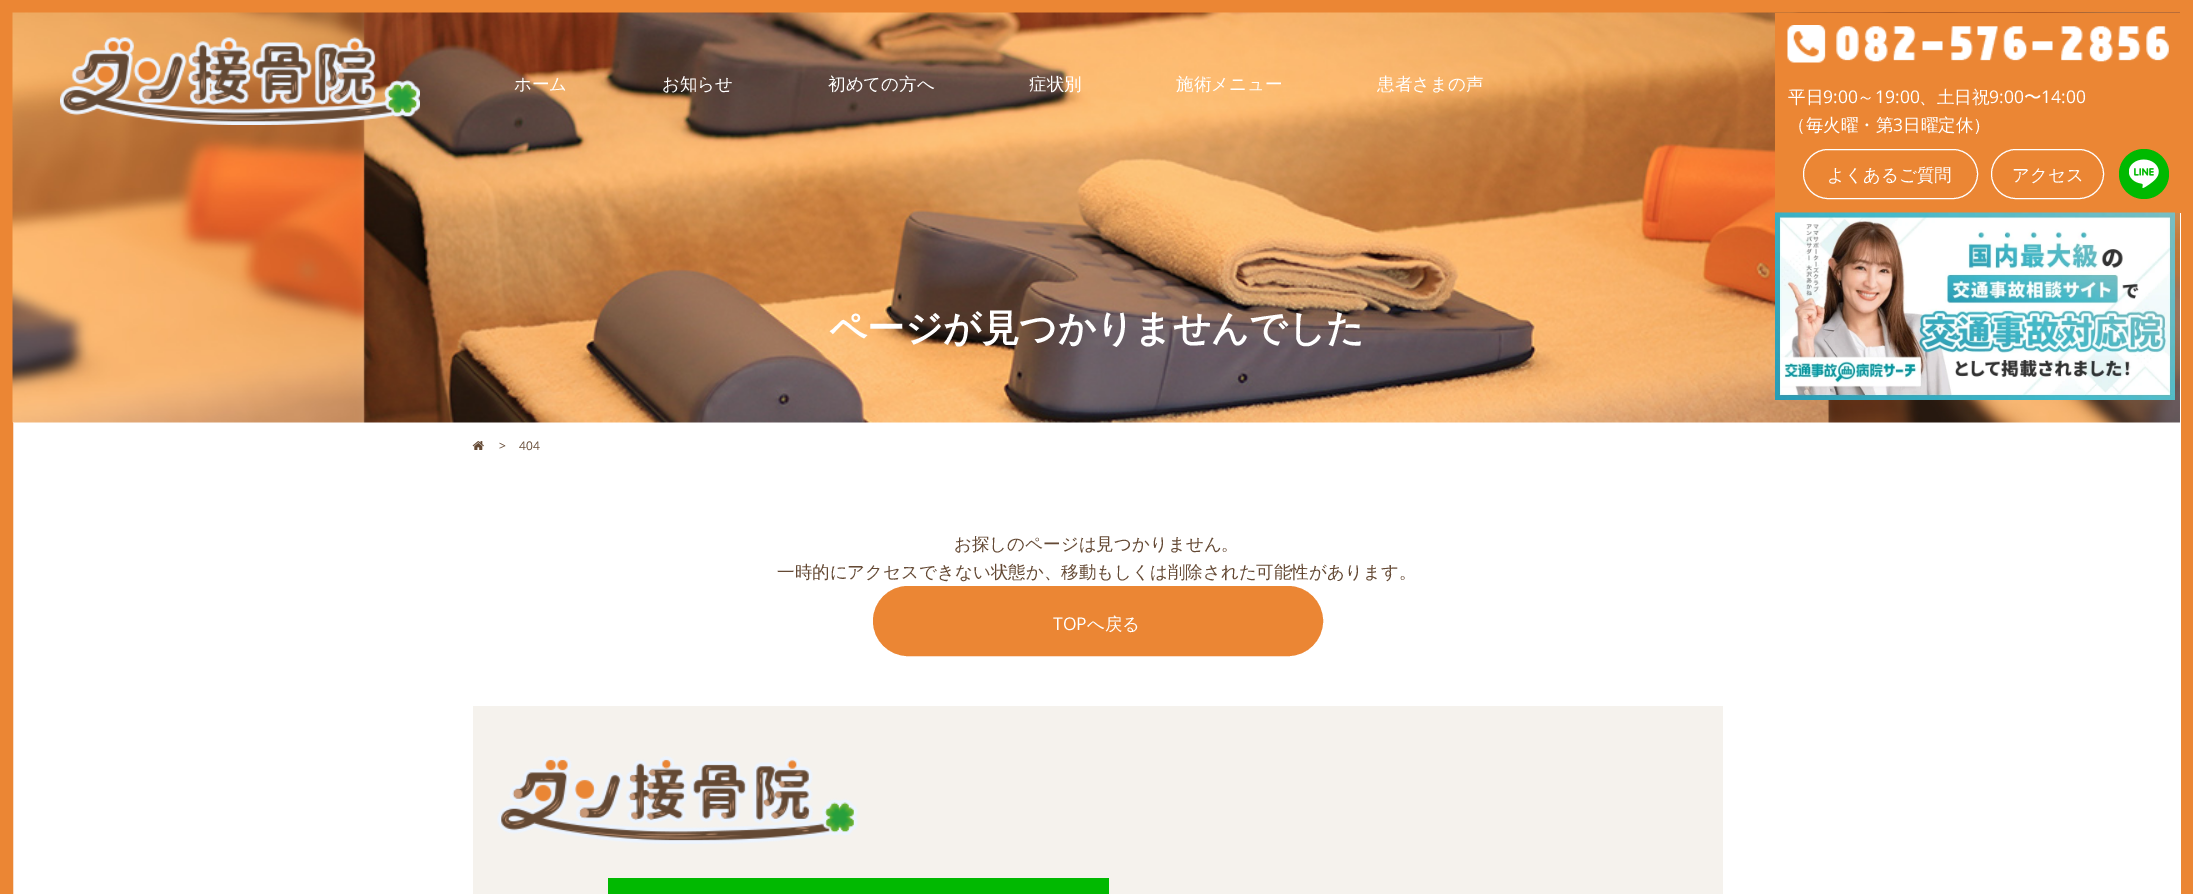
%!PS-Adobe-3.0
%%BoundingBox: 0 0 2193 894
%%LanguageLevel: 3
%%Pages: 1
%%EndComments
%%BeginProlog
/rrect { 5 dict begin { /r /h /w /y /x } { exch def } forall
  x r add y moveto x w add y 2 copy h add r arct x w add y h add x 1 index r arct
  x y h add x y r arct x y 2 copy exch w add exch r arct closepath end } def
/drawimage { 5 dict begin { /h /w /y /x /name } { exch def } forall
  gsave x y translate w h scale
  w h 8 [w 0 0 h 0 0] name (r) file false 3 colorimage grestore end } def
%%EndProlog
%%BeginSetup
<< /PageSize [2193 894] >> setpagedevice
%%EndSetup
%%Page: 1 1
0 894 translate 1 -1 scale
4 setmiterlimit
1 setgray
0 0 2193 894 rectfill
0.922 0.525 0.204 setrgbcolor
13 setlinewidth
6.5 6.5 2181 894 rectstroke
(images/1.raw) 12 12 2168 411 drawimage
(images/2.raw) 60 37 360 88 drawimage
1775 13 406 200 rectfill
(images/3.raw) 1787 25 382 38 drawimage
1 setgray
1 setlinewidth
1803.5 149.5 174 49 24.5 rrect stroke
1991.5 149.5 112 49 24.5 rrect stroke
0 0.725 0 setrgbcolor
newpath 2144 174 25 0 360 arc closepath fill
(images/4.raw) 2129 159 30 29 drawimage
(images/5.raw) 1775 212 400 188 drawimage
(images/6.raw) 472 441 12 9 drawimage
0.922 0.525 0.204 setrgbcolor
874.5 587.5 447 67 33.5 rrect gsave fill grestore
3 setlinewidth
stroke
0.961 0.949 0.929 setrgbcolor
473 706 1250 188 rectfill
(images/7.raw) 497 756 361 88 drawimage
0.004 0.725 0.004 setrgbcolor
608 878 501 16 rectfill
/WenQuanYiZenHei-Medium [17.5 0 0 -17.5 0 0] selectfont
1 setgray
514 90 moveto (ホーム) show
662 90 moveto (お知らせ) show
828 90 moveto (初めての方へ) show
1029 90 moveto (症状別) show
1176 90 moveto (施術メニュー) show
1377 90 moveto (患者さまの声) show
1788 103 moveto (平日) show
/OpenSans-Regular [17.5 0 0 -17.5 0 0] selectfont
1823 103 moveto (9:00) show
/WenQuanYiZenHei-Medium [17.5 0 0 -17.5 0 0] selectfont
1857 103 moveto (～) show
/OpenSans-Regular [17.5 0 0 -17.5 0 0] selectfont
1875 103 moveto (19:00) show
/WenQuanYiZenHei-Medium [17.5 0 0 -17.5 0 0] selectfont
1919 103 moveto (、土日祝) show
/OpenSans-Regular [17.5 0 0 -17.5 0 0] selectfont
1989 103 moveto (9:00) show
/WenQuanYiZenHei-Medium [17.5 0 0 -17.5 0 0] selectfont
2024 103 moveto (〜) show
/OpenSans-Regular [17.5 0 0 -17.5 0 0] selectfont
2041 103 moveto (14:00) show
/WenQuanYiZenHei-Medium [17.5 0 0 -17.5 0 0] selectfont
1788 131 moveto (（毎火曜・第) show
/OpenSans-Regular [17.5 0 0 -17.5 0 0] selectfont
1893 131 moveto (3) show
/WenQuanYiZenHei-Medium [17.5 0 0 -17.5 0 0] selectfont
1903 131 moveto (日曜定休）) show
1827 181 moveto (よくあるご質問) show
2012 181 moveto (アクセス) show
/WenQuanYiZenHei-Bold [37.5 0 0 -37.5 0 0] selectfont
829 341 moveto (ページが見つかりませんでした) show
/OpenSans-Regular [12 0 0 -12 0 0] selectfont
0.392 0.286 0.204 setrgbcolor
499 450 moveto (>) show
519 450 moveto (404) show
/WenQuanYiZenHei-Medium [17.5 0 0 -17.5 0 0] selectfont
954 550 moveto (お探しのページは見つかりません。) show
777 578 moveto (一時的にアクセスできない状態か、移動もしくは削除された可能性があります。) show
/OpenSans-Regular [17.5 0 0 -17.5 0 0] selectfont
1 setgray
1053 630 moveto (TOP) show
/WenQuanYiZenHei-Medium [17.5 0 0 -17.5 0 0] selectfont
1087 630 moveto (へ戻る) show
showpage
%%EOF
